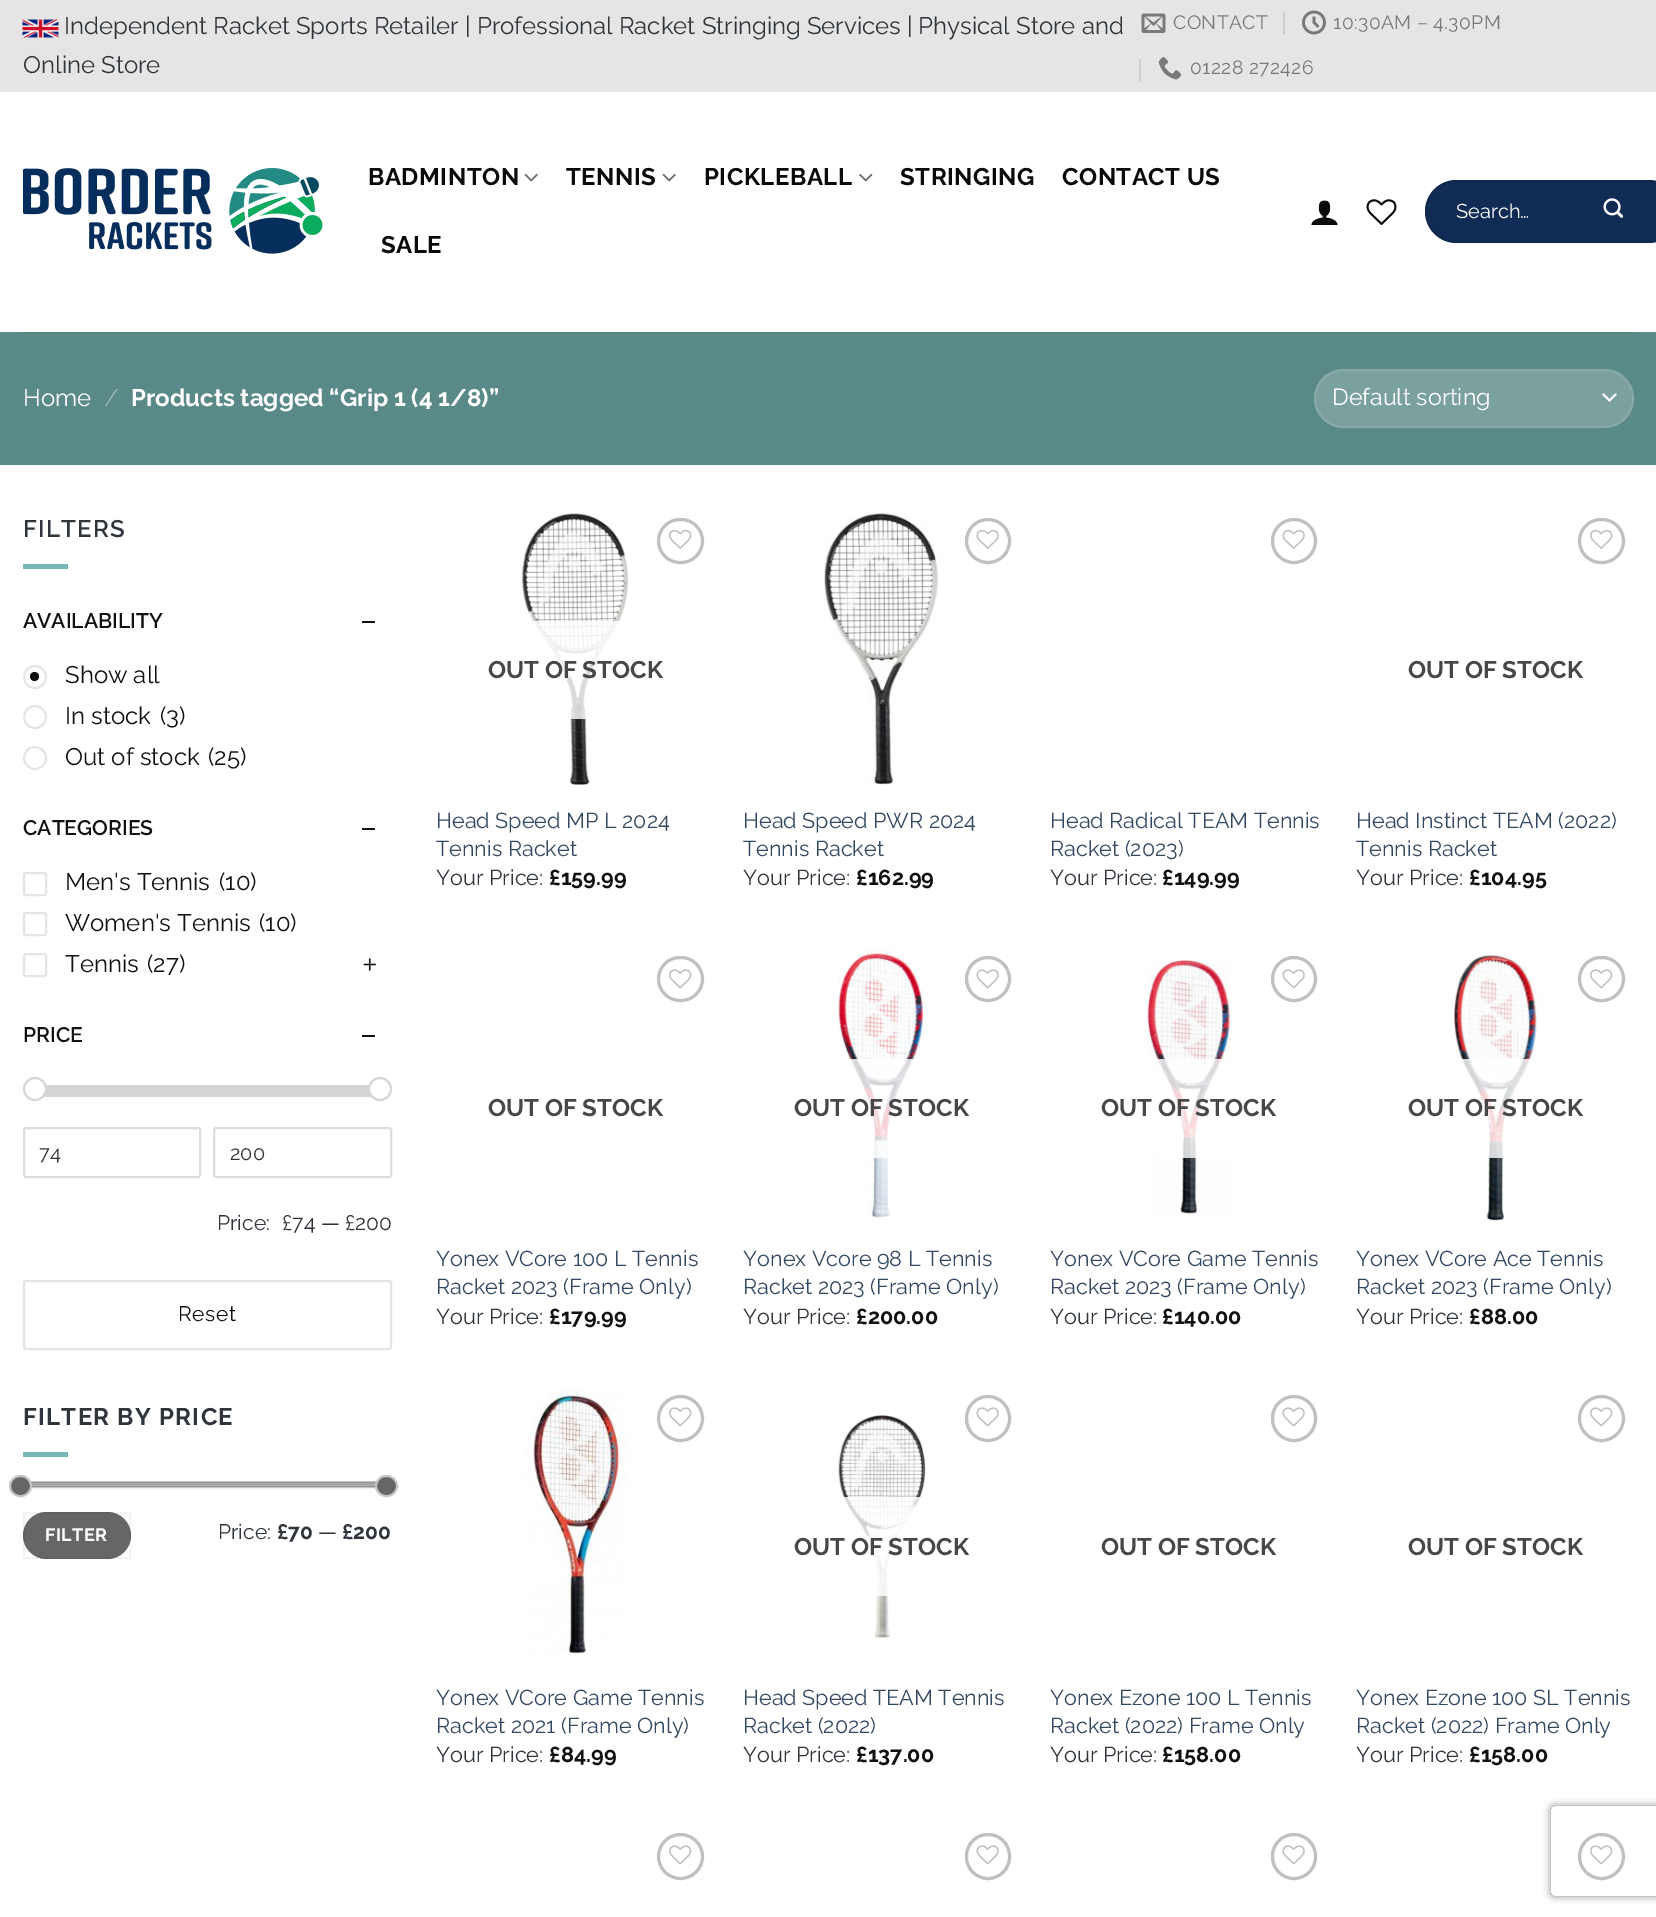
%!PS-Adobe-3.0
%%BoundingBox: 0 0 1656 1917
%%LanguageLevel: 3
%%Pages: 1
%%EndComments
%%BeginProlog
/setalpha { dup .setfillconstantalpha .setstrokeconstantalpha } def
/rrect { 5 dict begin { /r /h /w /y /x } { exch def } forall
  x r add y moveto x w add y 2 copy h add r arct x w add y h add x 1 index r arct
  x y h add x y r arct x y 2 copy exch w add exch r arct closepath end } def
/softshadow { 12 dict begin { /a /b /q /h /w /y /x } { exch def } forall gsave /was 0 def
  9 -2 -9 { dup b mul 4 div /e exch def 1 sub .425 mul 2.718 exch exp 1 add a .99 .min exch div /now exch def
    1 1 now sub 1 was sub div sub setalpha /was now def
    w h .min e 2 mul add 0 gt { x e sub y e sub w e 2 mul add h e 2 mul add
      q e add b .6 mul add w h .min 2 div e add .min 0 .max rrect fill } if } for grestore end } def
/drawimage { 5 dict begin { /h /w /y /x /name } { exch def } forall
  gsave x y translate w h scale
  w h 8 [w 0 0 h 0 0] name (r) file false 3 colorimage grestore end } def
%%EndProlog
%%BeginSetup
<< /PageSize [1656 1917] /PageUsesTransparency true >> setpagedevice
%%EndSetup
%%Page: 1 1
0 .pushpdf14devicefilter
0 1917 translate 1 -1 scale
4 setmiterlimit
1 setgray
0 0 1656 1917 rectfill
0.898 setgray
0 0 1656 92 rectfill
(images/1.raw) 22 19 37 19 drawimage
(images/2.raw) 1141 13 25 20 drawimage
0.808 setgray
1283 12 2 23 rectfill
(images/3.raw) 1302 10 24 25 drawimage
1139 59 2 22 rectfill
(images/4.raw) 1158 57 24 23 drawimage
(images/5.raw) 23 168 300 86 drawimage
(images/6.raw) 524 173 14 9 drawimage
(images/6.raw) 662 173 14 9 drawimage
(images/7.raw) 859 173 14 9 drawimage
(images/8.raw) 1311 200 27 25 drawimage
(images/9.raw) 1366 199 31 26 drawimage
0.063 0.173 0.333 setrgbcolor
1425 180 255 63 31.5 rrect fill
0.09 setalpha
0 setgray
2 setlinewidth
1426 181 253 61 30.5 rrect stroke
1 setalpha
(images/10.raw) 1603 198 21 20 drawimage
0.353 0.541 0.529 setrgbcolor
0 332 1656 133 rectfill
0.337 0.51 0.498 setrgbcolor
23 332 1611 2 rectfill
0.482 0.631 0.624 setrgbcolor
1314 369 320 59 29.5 rrect fill
1 setgray
1 setlinecap
1 setlinejoin
newpath 1603.5 394.5 moveto 1609.5 400.5 lineto 1615.5 394.5 lineto stroke
0.09 setalpha
0 setlinecap
0 setlinejoin
1315 370 318 57 28.5 rrect stroke
1 setalpha
0.471 0.722 0.706 setrgbcolor
23 564 45 5 rectfill
0.067 setgray
362 621 13 2 rectfill
0.898 setgray
newpath 35 677 11 0 360 arc closepath stroke
0.067 setgray
newpath 34.5 676.5 4.5 0 360 arc closepath fill
0.898 setgray
newpath 35 717 11 0 360 arc closepath stroke
newpath 35 758 11 0 360 arc closepath stroke
0.067 setgray
362 828 13 2 rectfill
0.898 setgray
24 873 22 22 2 rrect stroke
24 913 22 22 2 rrect stroke
24 954 22 22 2 rrect stroke
(images/11.raw) 363 958 13 13 drawimage
0.067 setgray
362 1035 13 2 rectfill
0.835 setgray
43 1085 329 12 rectfill
1 setgray
newpath 35 1089 11 0 360 arc closepath gsave fill grestore
0.835 setgray
stroke
1 setgray
newpath 380 1089 11 0 360 arc closepath gsave fill grestore
0.835 setgray
stroke
0.867 setgray
24 1128 176 49 2 rrect stroke
214 1128 177 49 2 rrect stroke
0.898 setgray
24 1281 367 68 2 rrect stroke
0.471 0.722 0.706 setrgbcolor
23 1452 45 5 rectfill
0.945 setgray
23 1483 353 3 rectfill
0.773 setgray
24 1482 367 5 rectstroke
0.5 setalpha
0.4 setgray
24 1482 352 5 rectfill
1 setalpha
10 1476 21 20 10 rrect gsave fill grestore
0.773 setgray
stroke
0.4 setgray
376 1476 21 20 10 rrect gsave fill grestore
0.773 setgray
stroke
0.4 setgray
23 1512 108 47 23.5 rrect fill
0.05 setalpha
0 setgray
24 1513 106 45 rectstroke
1 setalpha
(images/12.raw) 521 513 108 272 drawimage
0.753 setgray
3 setlinewidth
658.5 519.5 44 43 21.5 rrect stroke
(images/13.raw) 669 529 23 20 drawimage
0.81 setalpha
1 setgray
532 621 88 98 rectfill
1 setalpha
(images/14.raw) 824 510 116 275 drawimage
0.753 setgray
newpath 988 541 21.5 0 360 arc closepath stroke
(images/15.raw) 976 529 23 20 drawimage
newpath 1294 541 21.5 0 360 arc closepath stroke
(images/15.raw) 1282 529 23 20 drawimage
1579.5 519.5 44 43 21.5 rrect stroke
(images/13.raw) 1590 529 23 20 drawimage
658.5 957.5 44 43 21.5 rrect stroke
(images/16.raw) 669 969 23 20 drawimage
(images/17.raw) 838 948 90 274 drawimage
newpath 988 979 21.5 0 360 arc closepath stroke
(images/18.raw) 976 969 23 20 drawimage
0.81 setalpha
1 setgray
846 1059 69 99 rectfill
1 setalpha
(images/19.raw) 1147 958 84 256 drawimage
0.753 setgray
newpath 1294 979 21.5 0 360 arc closepath stroke
(images/18.raw) 1282 969 23 20 drawimage
0.81 setalpha
1 setgray
1156 1059 71 99 rectfill
1 setalpha
(images/20.raw) 1453 955 87 266 drawimage
0.753 setgray
1579.5 957.5 44 43 21.5 rrect stroke
(images/16.raw) 1590 969 23 20 drawimage
0.81 setalpha
1 setgray
1460 1059 73 99 rectfill
1 setalpha
(images/21.raw) 525 1388 104 266 drawimage
0.753 setgray
newpath 680.5 1418.5 22 0 360 arc closepath stroke
(images/16.raw) 669 1407 23 20 drawimage
(images/22.raw) 838 1415 88 223 drawimage
966.5 1396.5 43 44 21.5 rrect stroke
(images/18.raw) 976 1407 23 20 drawimage
0.81 setalpha
1 setgray
843 1497 78 99 rectfill
1 setalpha
0.753 setgray
1272.5 1396.5 43 44 21.5 rrect stroke
(images/18.raw) 1282 1407 23 20 drawimage
newpath 1601.5 1418.5 22 0 360 arc closepath stroke
(images/16.raw) 1590 1407 23 20 drawimage
newpath 680.5 1856.5 22 0 360 arc closepath stroke
(images/16.raw) 669 1845 23 20 drawimage
966.5 1834.5 43 44 21.5 rrect stroke
(images/18.raw) 976 1845 23 20 drawimage
1272.5 1834.5 43 44 21.5 rrect stroke
(images/18.raw) 1282 1845 23 20 drawimage
newpath 1601.5 1856.5 22 0 360 arc closepath stroke
(images/16.raw) 1590 1845 23 20 drawimage
gsave
newpath 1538 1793 moveto 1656 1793 lineto 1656 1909 lineto 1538 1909 lineto closepath 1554 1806 moveto 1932 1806 lineto 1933.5 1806 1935 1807.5 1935 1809 curveto 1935 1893 lineto 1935 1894.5 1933.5 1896 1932 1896 curveto 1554 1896 lineto 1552.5 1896 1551 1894.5 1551 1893 curveto 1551 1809 lineto 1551 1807.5 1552.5 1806 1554 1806 curveto closepath eoclip newpath
0.502 setgray
1551 1806 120 90 3 4 1 softshadow
grestore
/Raleway-Regular [24 0 0 -24 0 0] selectfont
0.184 0.208 0.227 setrgbcolor
64 34 moveto (Independent Racket Sports Retailer | Professional Racket Stringing Services | Physical Store and) show
23 73 moveto (Online Store) show
/Raleway-Regular [19.25 0 0 -19.25 0 0] selectfont
0.475 setgray
1173 29 moveto 0.4 0 (CONTACT) ashow
1333 29 moveto 0.4 0 (10:30AM – 4.30PM) ashow
1190 74 moveto 0.4 0 (01228 272426) ashow
/Raleway-Bold [24 0 0 -24 0 0] selectfont
0.039 setgray
368 185 moveto 0.5 0 (BADMINTON) ashow
566 185 moveto 0.5 0 (TENNIS) ashow
704 185 moveto 0.5 0 (PICKLEBALL) ashow
900 185 moveto 0.5 0 (STRINGING) ashow
1062 185 moveto 0.5 0 (CONTACT US) ashow
381 253 moveto 0.5 0 (SALE) ashow
/Raleway-Regular [20 0 0 -20 0 0] selectfont
1 setgray
1456 218 moveto (Search…) show
/Raleway-Regular [24 0 0 -24 0 0] selectfont
23 406 moveto (Home) show
0.58 0.702 0.694 setrgbcolor
104 406 moveto (/) show
/Raleway-Bold [24 0 0 -24 0 0] selectfont
1 setgray
131 406 moveto (Products tagged “Grip 1 \(4 1/8\)”) show
/Raleway-Regular [23.25 0 0 -23.25 0 0] selectfont
1332 405 moveto (Default sorting) show
/Raleway-SemiBold [24 0 0 -24 0 0] selectfont
0.184 0.208 0.227 setrgbcolor
23 537 moveto 1.25 0 (FILTERS) ashow
/Raleway-SemiBold [21 0 0 -21 0 0] selectfont
0.067 setgray
23 628 moveto (AVAILABILITY) show
/Raleway-Regular [24 0 0 -24 0 0] selectfont
65 683 moveto (Show all) show
65 724 moveto (In stock) show
160 724 moveto (\(3\)) show
65 765 moveto (Out of stock) show
208 765 moveto (\(25\)) show
/Raleway-SemiBold [21 0 0 -21 0 0] selectfont
23 835 moveto (CATEGORIES) show
/Raleway-Regular [24 0 0 -24 0 0] selectfont
65 890 moveto (Men's Tennis) show
219 890 moveto (\(10\)) show
65 931 moveto (Women's Tennis) show
259 931 moveto (\(10\)) show
65 972 moveto (Tennis) show
147 972 moveto (\(27\)) show
/Raleway-SemiBold [21 0 0 -21 0 0] selectfont
23 1042 moveto (PRICE) show
/Raleway-Regular [20 0 0 -20 0 0] selectfont
0.2 setgray
39 1160 moveto (74) show
230 1160 moveto (200) show
/Raleway-Regular [21 0 0 -21 0 0] selectfont
0.184 0.208 0.227 setrgbcolor
217 1230 moveto (Price:) show
282 1230 moveto (£74 — £200) show
0.067 setgray
178 1321 moveto 0.5 0 (Reset) ashow
/Raleway-Bold [24 0 0 -24 0 0] selectfont
0.184 0.208 0.227 setrgbcolor
23 1425 moveto 1.25 0 (FILTER BY PRICE) ashow
/Raleway-Bold [18 0 0 -18 0 0] selectfont
1 setgray
45 1541 moveto 0.5 0 (FILTER) ashow
/Raleway-Regular [21 0 0 -21 0 0] selectfont
0.184 0.208 0.227 setrgbcolor
218 1539 moveto (Price:) show
/Raleway-Bold [21 0 0 -21 0 0] selectfont
277 1539 moveto (£70) show
/Raleway-Regular [21 0 0 -21 0 0] selectfont
318 1539 moveto (—) show
/Raleway-Bold [21 0 0 -21 0 0] selectfont
342 1539 moveto (£200) show
/Raleway-Bold [24 0 0 -24 0 0] selectfont
0.278 setgray
488 678 moveto (OUT OF STOCK) show
/Raleway-Regular [21.6 0 0 -21.6 0 0] selectfont
0.2 0.282 0.384 setrgbcolor
436 828 moveto (Head Speed MP L 2024) show
436 856 moveto (Tennis Racket) show
0.184 0.208 0.227 setrgbcolor
436 885 moveto (Your Price:) show
/Raleway-Bold [21.6 0 0 -21.6 0 0] selectfont
0.067 setgray
549 885 moveto (£159.99) show
/Raleway-Regular [21.6 0 0 -21.6 0 0] selectfont
0.2 0.282 0.384 setrgbcolor
743 828 moveto (Head Speed PWR 2024) show
743 856 moveto (Tennis Racket) show
0.184 0.208 0.227 setrgbcolor
743 885 moveto (Your Price:) show
/Raleway-Bold [21.6 0 0 -21.6 0 0] selectfont
0.067 setgray
856 885 moveto (£162.99) show
/Raleway-Regular [21.6 0 0 -21.6 0 0] selectfont
0.2 0.282 0.384 setrgbcolor
1050 828 moveto (Head Radical TEAM Tennis) show
1050 856 moveto (Racket \(2023\)) show
0.184 0.208 0.227 setrgbcolor
1050 885 moveto (Your Price:) show
/Raleway-Bold [21.6 0 0 -21.6 0 0] selectfont
0.067 setgray
1162 885 moveto (£149.99) show
/Raleway-Bold [24 0 0 -24 0 0] selectfont
0.278 setgray
1408 678 moveto (OUT OF STOCK) show
/Raleway-Regular [21.6 0 0 -21.6 0 0] selectfont
0.2 0.282 0.384 setrgbcolor
1356 828 moveto (Head Instinct TEAM \(2022\)) show
1356 856 moveto (Tennis Racket) show
0.184 0.208 0.227 setrgbcolor
1356 885 moveto (Your Price:) show
/Raleway-Bold [21.6 0 0 -21.6 0 0] selectfont
0.067 setgray
1469 885 moveto (£104.95) show
/Raleway-Bold [24 0 0 -24 0 0] selectfont
0.278 setgray
488 1116 moveto (OUT OF STOCK) show
/Raleway-Regular [21.6 0 0 -21.6 0 0] selectfont
0.2 0.282 0.384 setrgbcolor
436 1266 moveto (Yonex VCore 100 L Tennis) show
436 1294 moveto (Racket 2023 \(Frame Only\)) show
0.184 0.208 0.227 setrgbcolor
436 1324 moveto (Your Price:) show
/Raleway-Bold [21.6 0 0 -21.6 0 0] selectfont
0.067 setgray
549 1324 moveto (£179.99) show
/Raleway-Bold [24 0 0 -24 0 0] selectfont
0.278 setgray
794 1116 moveto (OUT OF STOCK) show
/Raleway-Regular [21.6 0 0 -21.6 0 0] selectfont
0.2 0.282 0.384 setrgbcolor
743 1266 moveto (Yonex Vcore 98 L Tennis) show
743 1294 moveto (Racket 2023 \(Frame Only\)) show
0.184 0.208 0.227 setrgbcolor
743 1324 moveto (Your Price:) show
/Raleway-Bold [21.6 0 0 -21.6 0 0] selectfont
0.067 setgray
856 1324 moveto (£200.00) show
/Raleway-Bold [24 0 0 -24 0 0] selectfont
0.278 setgray
1101 1116 moveto (OUT OF STOCK) show
/Raleway-Regular [21.6 0 0 -21.6 0 0] selectfont
0.2 0.282 0.384 setrgbcolor
1050 1266 moveto (Yonex VCore Game Tennis) show
1050 1294 moveto (Racket 2023 \(Frame Only\)) show
0.184 0.208 0.227 setrgbcolor
1050 1324 moveto (Your Price:) show
/Raleway-Bold [21.6 0 0 -21.6 0 0] selectfont
0.067 setgray
1162 1324 moveto (£140.00) show
/Raleway-Bold [24 0 0 -24 0 0] selectfont
0.278 setgray
1408 1116 moveto (OUT OF STOCK) show
/Raleway-Regular [21.6 0 0 -21.6 0 0] selectfont
0.2 0.282 0.384 setrgbcolor
1356 1266 moveto (Yonex VCore Ace Tennis) show
1356 1294 moveto (Racket 2023 \(Frame Only\)) show
0.184 0.208 0.227 setrgbcolor
1356 1324 moveto (Your Price:) show
/Raleway-Bold [21.6 0 0 -21.6 0 0] selectfont
0.067 setgray
1469 1324 moveto (£88.00) show
/Raleway-Regular [21.6 0 0 -21.6 0 0] selectfont
0.2 0.282 0.384 setrgbcolor
436 1705 moveto (Yonex VCore Game Tennis) show
436 1733 moveto (Racket 2021 \(Frame Only\)) show
0.184 0.208 0.227 setrgbcolor
436 1762 moveto (Your Price:) show
/Raleway-Bold [21.6 0 0 -21.6 0 0] selectfont
0.067 setgray
549 1762 moveto (£84.99) show
/Raleway-Bold [24 0 0 -24 0 0] selectfont
0.278 setgray
794 1555 moveto (OUT OF STOCK) show
/Raleway-Regular [21.6 0 0 -21.6 0 0] selectfont
0.2 0.282 0.384 setrgbcolor
743 1705 moveto (Head Speed TEAM Tennis) show
743 1733 moveto (Racket \(2022\)) show
0.184 0.208 0.227 setrgbcolor
743 1762 moveto (Your Price:) show
/Raleway-Bold [21.6 0 0 -21.6 0 0] selectfont
0.067 setgray
856 1762 moveto (£137.00) show
/Raleway-Bold [24 0 0 -24 0 0] selectfont
0.278 setgray
1101 1555 moveto (OUT OF STOCK) show
/Raleway-Regular [21.6 0 0 -21.6 0 0] selectfont
0.2 0.282 0.384 setrgbcolor
1050 1705 moveto (Yonex Ezone 100 L Tennis) show
1050 1733 moveto (Racket \(2022\) Frame Only) show
0.184 0.208 0.227 setrgbcolor
1050 1762 moveto (Your Price:) show
/Raleway-Bold [21.6 0 0 -21.6 0 0] selectfont
0.067 setgray
1162 1762 moveto (£158.00) show
/Raleway-Bold [24 0 0 -24 0 0] selectfont
0.278 setgray
1408 1555 moveto (OUT OF STOCK) show
/Raleway-Regular [21.6 0 0 -21.6 0 0] selectfont
0.2 0.282 0.384 setrgbcolor
1356 1705 moveto (Yonex Ezone 100 SL Tennis) show
1356 1733 moveto (Racket \(2022\) Frame Only) show
0.184 0.208 0.227 setrgbcolor
1356 1762 moveto (Your Price:) show
/Raleway-Bold [21.6 0 0 -21.6 0 0] selectfont
0.067 setgray
1469 1762 moveto (£158.00) show
.poppdf14devicefilter showpage
%%EOF
